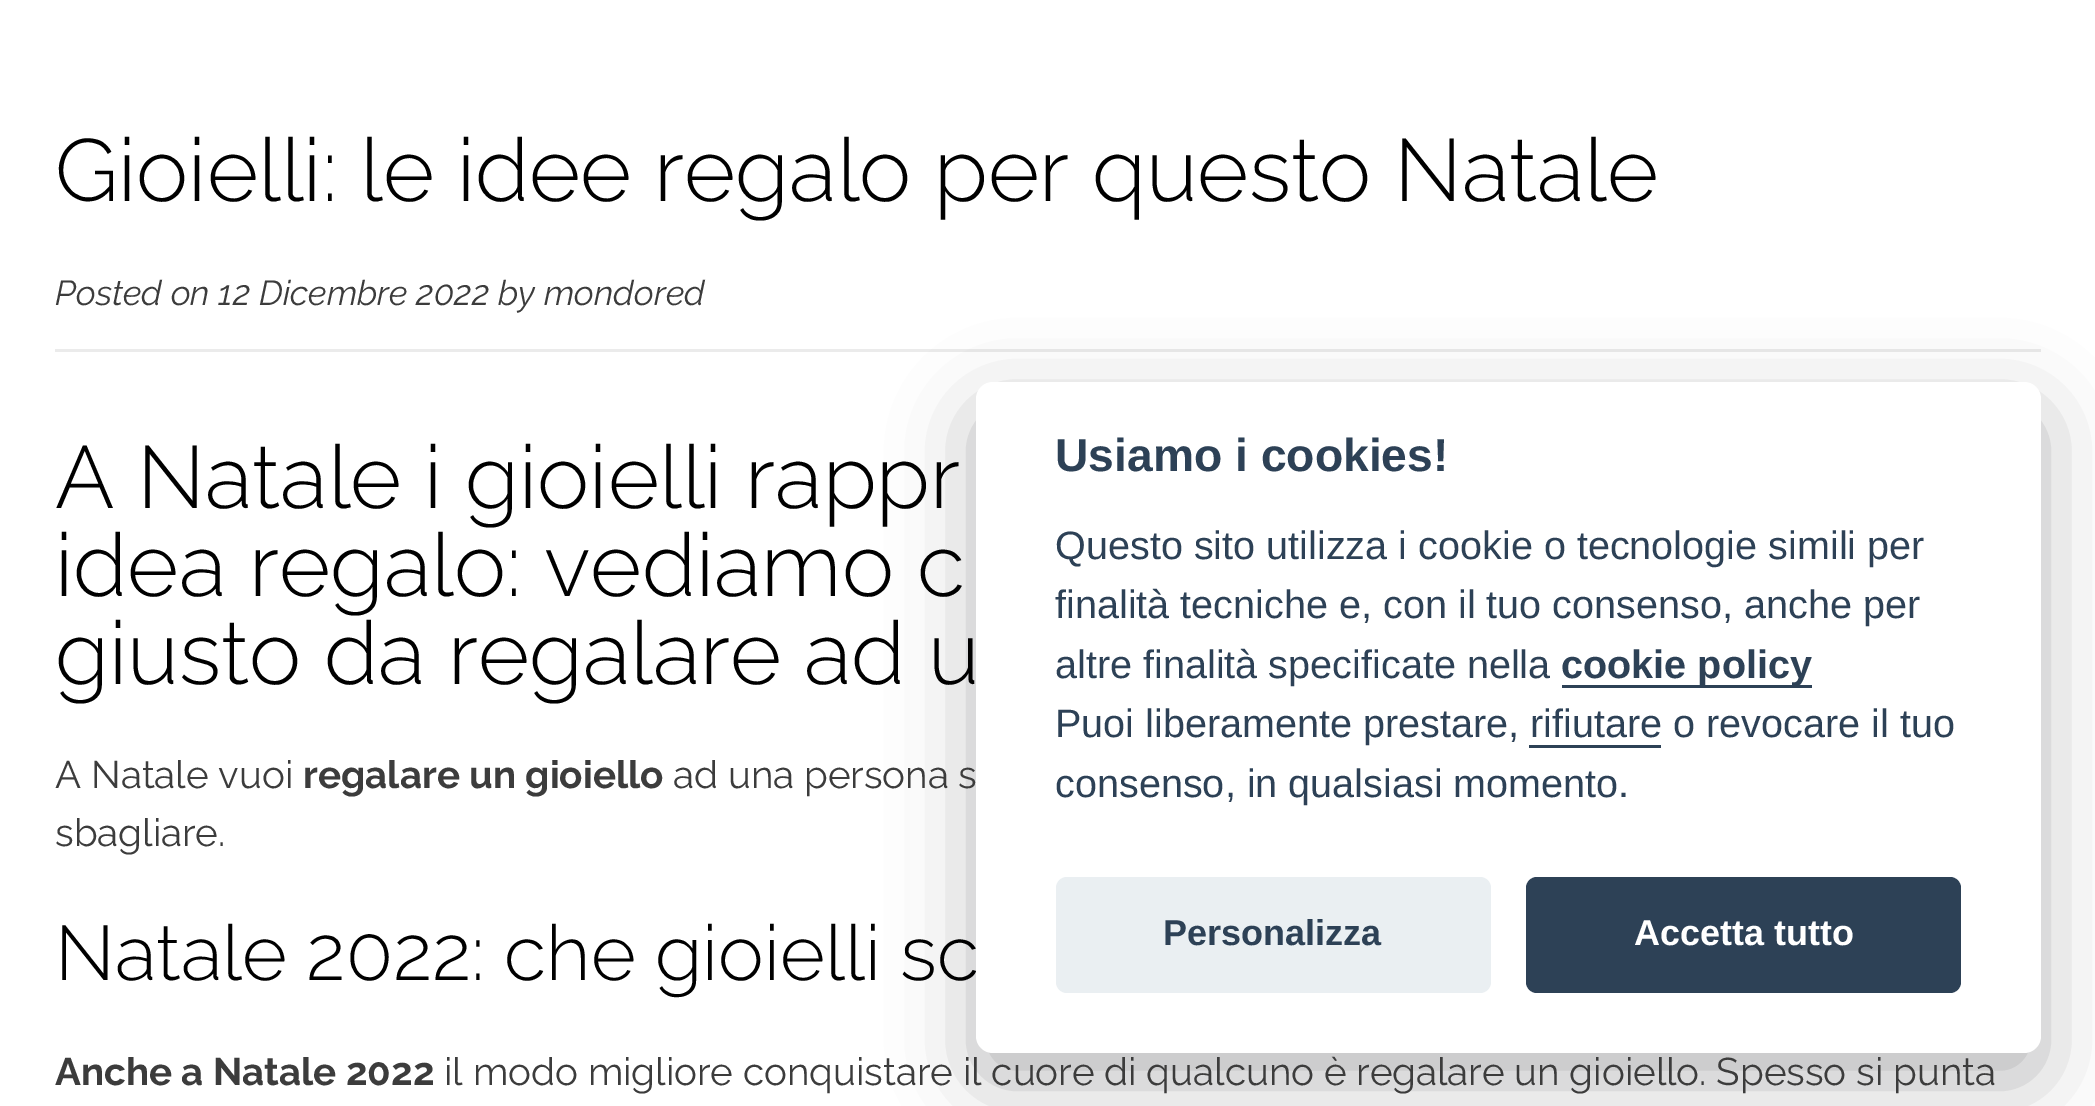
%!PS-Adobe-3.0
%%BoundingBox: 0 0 2095 1106
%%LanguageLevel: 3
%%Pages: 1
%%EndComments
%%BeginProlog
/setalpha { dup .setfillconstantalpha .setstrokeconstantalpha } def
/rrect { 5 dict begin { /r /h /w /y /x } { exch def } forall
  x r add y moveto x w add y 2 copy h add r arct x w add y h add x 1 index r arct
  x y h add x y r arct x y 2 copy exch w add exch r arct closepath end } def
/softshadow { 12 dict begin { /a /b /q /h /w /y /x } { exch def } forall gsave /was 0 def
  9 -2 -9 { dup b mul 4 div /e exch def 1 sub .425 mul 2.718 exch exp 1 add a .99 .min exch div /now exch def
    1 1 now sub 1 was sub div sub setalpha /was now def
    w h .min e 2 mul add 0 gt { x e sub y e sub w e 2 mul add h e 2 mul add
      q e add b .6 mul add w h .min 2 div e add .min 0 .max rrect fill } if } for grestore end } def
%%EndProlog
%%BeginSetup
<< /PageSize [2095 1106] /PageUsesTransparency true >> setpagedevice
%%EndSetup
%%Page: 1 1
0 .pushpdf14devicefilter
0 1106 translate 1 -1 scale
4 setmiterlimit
1 setgray
0 0 2095 1106 rectfill
0.922 setgray
55 349 1986 3 rectfill
0.008 0.008 0.012 setrgbcolor
976 410 1065 671 17 41 0.28 softshadow
/Raleway-Light [88 0 0 -88 0 0] selectfont
0 setgray
55 201 moveto (Gioielli: le idee regalo per questo Natale) show
/Raleway-Italic [34.6 0 0 -34.6 0 0] selectfont
0.235 setgray
55 305 moveto (Posted on 12 Dicembre 2022 by mondored) show
/Raleway-Light [88 0 0 -88 0 0] selectfont
0 setgray
55 508 moveto (A Natale i gioielli rappr) show
55 596 moveto (idea regalo: vediamo c) show
55 684 moveto (giusto da regalare ad u) show
/Raleway-Regular [38.5 0 0 -38.5 0 0] selectfont
0.235 setgray
55 788 moveto (A Natale vuoi) show
/Raleway-Bold [38.5 0 0 -38.5 0 0] selectfont
303 788 moveto (regalare un gioiello) show
/Raleway-Regular [38.5 0 0 -38.5 0 0] selectfont
673 788 moveto (ad una persona s) show
55 846 moveto (sbagliare.) show
/Raleway-Light [77 0 0 -77 0 0] selectfont
0 setgray
55 980 moveto (Natale 2022: che gioielli sc) show
/Raleway-Bold [38.5 0 0 -38.5 0 0] selectfont
0.235 setgray
55 1085 moveto (Anche a Natale 2022) show
/Raleway-Regular [38.5 0 0 -38.5 0 0] selectfont
444 1085 moveto (il modo migliore conquistare il cuore di qualcuno è regalare un gioiello. Spesso si punta) show
1 setgray
976 382 1065 671 17 rrect fill
/LiberationSans-Bold [46.25 0 0 -46.25 0 0] selectfont
0.176 0.255 0.337 setrgbcolor
1055 471 moveto (Usiamo i cookies!) show
/LiberationSans-Regular [39.6 0 0 -39.6 0 0] selectfont
1055 559 moveto (Questo sito utilizza i cookie o tecnologie simili per) show
1055 618 moveto (finalità tecniche e, con il tuo consenso, anche per) show
1055 678 moveto (altre finalità specificate nella) show
1562 685 250 3 rectfill
/LiberationSans-Bold [39.6 0 0 -39.6 0 0] selectfont
1561 678 moveto (cookie policy) show
/LiberationSans-Regular [39.6 0 0 -39.6 0 0] selectfont
1055 737 moveto (Puoi liberamente prestare,) show
1530 737 moveto (rifiutare o revocare il tuo) show
1529 745 132 3 rectfill
1055 797 moveto (consenso, in qualsiasi momento.) show
0.918 0.937 0.949 setrgbcolor
1056 877 435 116 11 rrect fill
/LiberationSans-Bold [36 0 0 -36 0 0] selectfont
0.176 0.255 0.337 setrgbcolor
1163 945 moveto (Personalizza) show
1526 877 435 116 11 rrect fill
1 setgray
1634 945 moveto (Accetta tutto) show
.poppdf14devicefilter showpage
%%EOF
